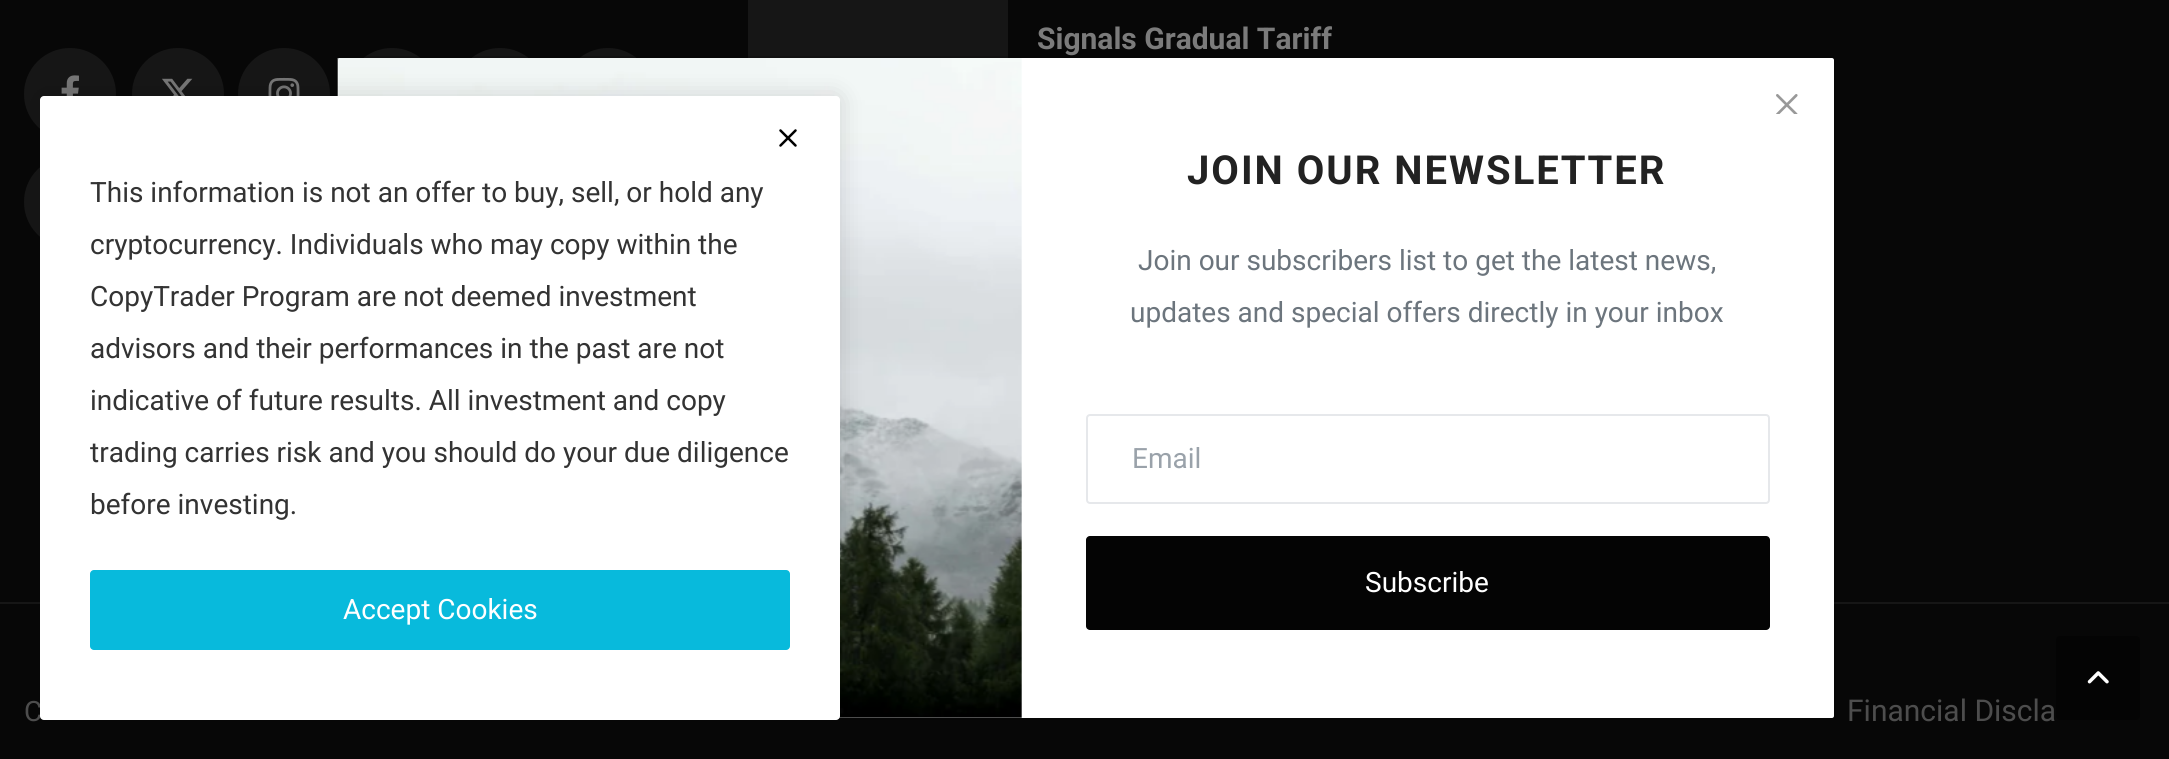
import math
import cairo

surface = cairo.ImageSurface(cairo.FORMAT_RGB24, 2169, 759)
cr = cairo.Context(surface)
options = cairo.FontOptions()
options.set_hint_metrics(cairo.HINT_METRICS_OFF)
options.set_hint_style(cairo.HINT_STYLE_NONE)
cr.set_font_options(options)
cr.set_miter_limit(4)


def rgb(code):
    cr.set_source_rgb(*(v / 255 for v in bytes.fromhex(code[-6:])))


def tracked(x, y, s, letter, word):
    cr.move_to(x, y)
    for ch in s:
        cr.show_text(ch)
        cr.rel_move_to(letter + word * (ch == ' '), 0)


def rrect(x, y, w, h, r):
    cr.new_sub_path()
    for i, (u, v) in enumerate([(x + w - r, y + h - r), (x + r, y + h - r), (x + r, y + r), (x + w - r, y + r)]):
        cr.arc(u, v, r, i * math.pi / 2, (i + 1) * math.pi / 2)
    cr.close_path()


def soft_shadow(x, y, w, h, r, blur, alpha):
    cr.push_group_with_content(cairo.CONTENT_ALPHA)
    cr.set_operator(cairo.OPERATOR_SOURCE)
    for i in range(15, -16, -2):
        e = blur * i / 6
        if min(w, h) + 2 * e > 0:
            cr.set_source_rgba(0, 0, 0, alpha * math.erfc((i - 1) / 8.5) / 2)
            rrect(x - e, y - e, w + 2 * e, h + 2 * e, max(0, min(r + e + blur * .6, min(w, h) / 2 + e)))
            cr.fill()
    cr.mask(cr.pop_group())


def image(path, x, y, w, h):
    cr.save()
    cr.set_source_surface(cairo.ImageSurface.create_from_png(path), x, y)
    cr.rectangle(x, y, w, h)
    cr.fill()
    cr.restore()


rgb("#070707")
cr.paint()
rgb("#161616")
cr.rectangle(748, 0, 260, 58)
cr.fill()
cr.arc(70, 94, 46, 0, 2 * math.pi)
cr.fill()
image("img/1.png", 61, 75, 18, 21)
cr.arc(178, 94, 46, 0, 2 * math.pi)
cr.fill()
image("img/2.png", 162, 78, 31, 18)
cr.arc(284, 94, 46, 0, 2 * math.pi)
cr.fill()
image("img/3.png", 268, 77, 32, 19)
cr.arc(392, 94, 46, 0, 2 * math.pi)
cr.fill()
cr.arc(500, 94, 46, 0, 2 * math.pi)
cr.fill()
cr.arc(608, 94, 46, 0, 2 * math.pi)
cr.fill()
cr.arc(70, 202, 46, 0, 2 * math.pi)
cr.fill()
cr.rectangle(0, 602, 2169, 2)
cr.fill()
rgb("#ffffff")
rrect(338, 58, 1496, 660, 2)
cr.fill()
rrect(337, 57, 1498, 662, 3)
cr.set_source_rgba(0, 0, 0, 0.18)
cr.stroke()
image("img/5.png", 337, 58, 685, 660)
rgb("#000000")
soft_shadow(40, 96, 800, 624, 4, 12, 0.14)
image("img/6.png", 1776, 94, 22, 20)
rrect(1087, 415, 682, 88, 3)
rgb("#e6e8eb")
cr.stroke()
rgb("#040404")
rrect(1086, 536, 684, 94, 4)
cr.fill()
rrect(2056, 636, 84, 84, 4)
cr.fill()
image("img/7.png", 2087, 671, 22, 13)
cr.select_font_face("Roboto", cairo.FONT_SLANT_NORMAL, cairo.FONT_WEIGHT_BOLD)
cr.set_font_size(30)
rgb("#7b7b7b")
cr.move_to(1037, 49)
cr.show_text("Signals Gradual Tariff")
cr.select_font_face("Roboto")
cr.set_font_size(28)
rgb("#4d4d4d")
cr.move_to(24, 721)
cr.show_text("C")
cr.set_font_size(30)
cr.move_to(1847, 721)
cr.show_text("Financial Discla")
rgb("#ffffff")
rrect(40, 96, 800, 624, 4)
cr.fill()
image("img/4.png", 779, 129, 18, 18)
cr.set_font_size(28)
rgb("#333333")
for x, y, s in [
    (90, 202, "This information is not an offer to buy, sell, or hold any"),
    (90, 254, "cryptocurrency. Individuals who may copy within the"),
    (90, 306, "CopyTrader Program are not deemed investment"),
    (90, 358, "advisors and their performances in the past are not"),
    (90, 410, "indicative of future results. All investment and copy"),
    (90, 462, "trading carries risk and you should do your due diligence"),
    (90, 514, "before investing."),
]:
    cr.move_to(x, y)
    cr.show_text(s)
rgb("#08badc")
rrect(90, 570, 700, 80, 4)
cr.fill()
rgb("#ffffff")
cr.move_to(343, 619)
cr.show_text("Accept Cookies")
cr.select_font_face("Roboto", cairo.FONT_SLANT_NORMAL, cairo.FONT_WEIGHT_BOLD)
cr.set_font_size(40)
rgb("#222222")
tracked(1187, 184, "JOIN OUR NEWSLETTER", 2, 0)
cr.select_font_face("Roboto")
cr.set_font_size(28)
rgb("#6c757d")
cr.move_to(1138, 270)
cr.show_text("Join our subscribers list to get the latest news,")
cr.move_to(1130, 322)
cr.show_text("updates and special offers directly in your inbox")
rgb("#9aa2aa")
cr.move_to(1132, 468)
cr.show_text("Email")
rgb("#ffffff")
cr.move_to(1365, 592)
cr.show_text("Subscribe")
surface.write_to_png("page.png")
